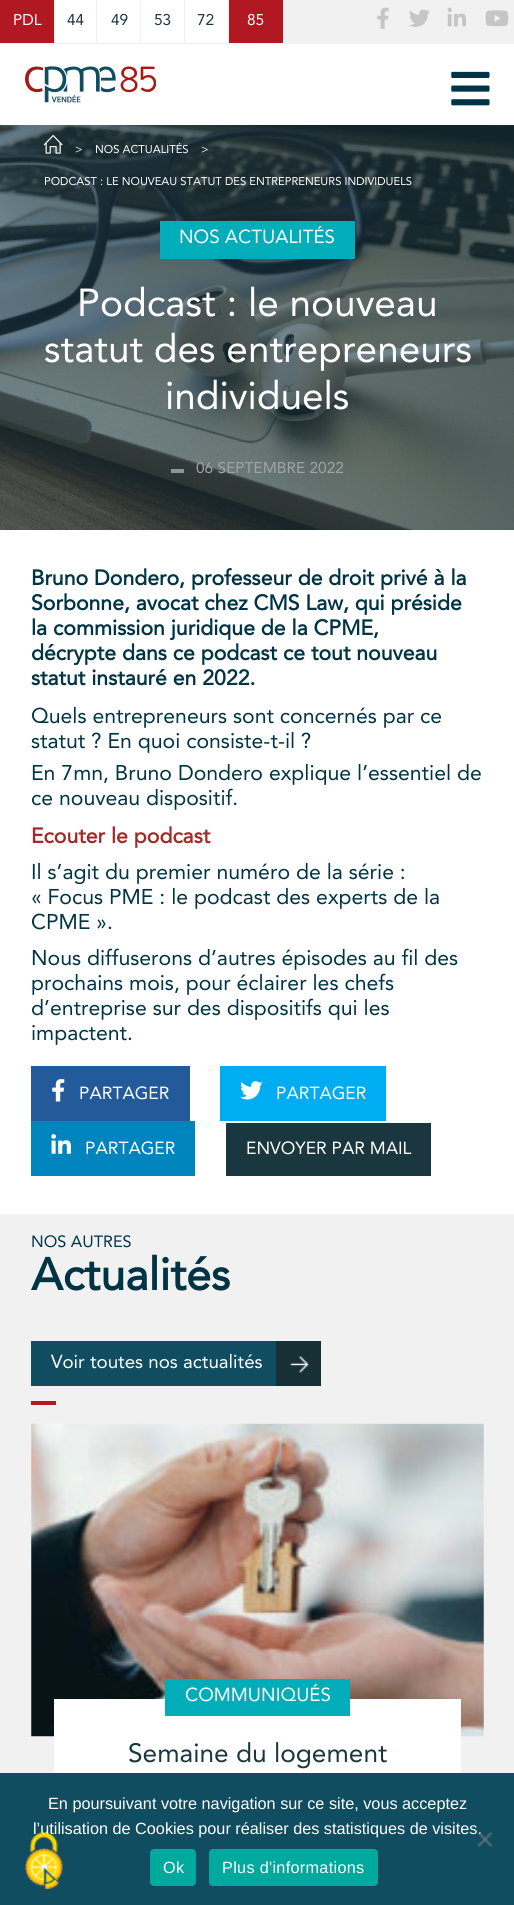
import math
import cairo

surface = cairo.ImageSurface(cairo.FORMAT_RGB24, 514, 1905)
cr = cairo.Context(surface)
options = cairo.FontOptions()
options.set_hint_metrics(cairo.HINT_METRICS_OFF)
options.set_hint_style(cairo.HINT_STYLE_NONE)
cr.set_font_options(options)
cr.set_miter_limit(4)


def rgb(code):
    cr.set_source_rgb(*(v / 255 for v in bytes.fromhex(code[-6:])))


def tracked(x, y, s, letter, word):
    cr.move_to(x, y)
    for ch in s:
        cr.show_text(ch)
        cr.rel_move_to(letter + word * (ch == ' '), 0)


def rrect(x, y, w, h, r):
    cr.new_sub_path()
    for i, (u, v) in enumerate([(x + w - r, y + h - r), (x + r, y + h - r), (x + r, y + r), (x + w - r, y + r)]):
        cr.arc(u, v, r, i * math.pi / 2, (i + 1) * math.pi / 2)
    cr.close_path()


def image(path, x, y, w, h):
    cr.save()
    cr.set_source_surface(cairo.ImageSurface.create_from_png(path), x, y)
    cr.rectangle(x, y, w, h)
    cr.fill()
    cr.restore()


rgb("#ffffff")
cr.paint()
for x, y, w, h, color in [
    (283, 0, 231, 44, "#f1f1f1"),
    (0, 0, 54, 43, "#b21822"),
    (54, 0, 1, 44, "#f1f1f1"),
    (0, 43, 55, 1, "#f1f1f1"),
    (96, 0, 1, 44, "#f1f1f1"),
    (55, 43, 43, 1, "#f1f1f1"),
    (140, 0, 1, 44, "#f1f1f1"),
    (98, 43, 43, 1, "#f1f1f1"),
    (184, 0, 1, 44, "#f1f1f1"),
    (141, 43, 44, 1, "#f1f1f1"),
    (228, 0, 1, 44, "#f1f1f1"),
    (185, 43, 99, 1, "#f1f1f1"),
    (229, 0, 54, 43, "#b21822"),
]:
    rgb(color)
    cr.rectangle(x, y, w, h)
    cr.fill()
image("img/1.png", 377, 7, 12, 22)
image("img/2.png", 409, 9, 21, 18)
image("img/3.png", 447, 7, 20, 20)
image("img/4.png", 485, 10, 24, 17)
image("img/5.png", 25, 66, 131, 37)
image("img/6.png", 451, 71, 39, 35)
image("img/7.png", 0, 125, 514, 405)
image("img/8.png", 43, 134, 20, 20)
rgb("#00adb9")
cr.rectangle(160, 221, 195, 38)
cr.fill()
cr.set_source_rgba(0.737, 0.737, 0.737, 0.7)
cr.rectangle(171, 469, 13, 4)
cr.fill()
rgb("#235a9a")
cr.rectangle(31, 1066, 159, 55)
cr.fill()
image("img/9.png", 52, 1079, 13, 23)
rgb("#00adf2")
cr.rectangle(220, 1066, 166, 55)
cr.fill()
image("img/10.png", 240, 1081, 23, 19)
rgb("#0084bd")
cr.rectangle(31, 1121, 164, 55)
cr.fill()
image("img/11.png", 51, 1134, 20, 20)
for x, y, w, h, color in [
    (226, 1123, 205, 53, "#1a373f"),
    (0, 1214, 514, 559, "#f1f1f1"),
    (31, 1341, 245, 45, "#114d61"),
    (276, 1341, 45, 45, "#163036"),
]:
    rgb(color)
    cr.rectangle(x, y, w, h)
    cr.fill()
image("img/12.png", 290, 1356, 19, 17)
rgb("#b21822")
cr.rectangle(31, 1401, 25, 4)
cr.fill()
image("img/13.png", 31, 1423, 453, 314)
for x, y, w, h, color in [
    (54, 1699, 407, 74, "#ffffff"),
    (165, 1679, 185, 37, "#00adb9"),
    (0, 1773, 514, 132, "#114d61"),
]:
    rgb(color)
    cr.rectangle(x, y, w, h)
    cr.fill()
rgb("#00a99d")
rrect(150, 1849, 46, 37, 4)
cr.fill()
rrect(209, 1849, 169, 37, 4)
cr.fill()
cr.select_font_face("Avenir")
cr.set_font_size(15.5)
rgb("#ffffff")
cr.move_to(13, 25)
cr.show_text("PDL")
rgb("#1a373f")
for x, y, s in [
    (67, 25, "44"),
    (111, 25, "49"),
    (154, 25, "53"),
    (197, 25, "72"),
]:
    cr.move_to(x, y)
    cr.show_text(s)
rgb("#ffffff")
cr.move_to(247, 25)
cr.show_text("85")
cr.set_font_size(11.25)
for x, y, s in [
    (75, 153, ">"),
    (95, 153, "NOS ACTUALITÉS"),
    (201, 153, ">"),
    (44, 185, "PODCAST : LE NOUVEAU STATUT DES ENTREPRENEURS INDIVIDUELS"),
]:
    cr.move_to(x, y)
    cr.show_text(s)
cr.set_font_size(18.75)
cr.move_to(179, 243)
cr.show_text("NOS ACTUALITÉS")
cr.set_font_size(38.75)
for x, y, s in [
    (77, 316, "Podcast : le nouveau"),
    (44, 362, "statut des entrepreneurs"),
    (165, 409, "individuels"),
]:
    cr.move_to(x, y)
    cr.show_text(s)
cr.set_font_size(15.5)
rgb("#a0a4a3")
cr.move_to(196, 473)
cr.show_text("06 SEPTEMBRE 2022")
cr.select_font_face("Avenir", cairo.FONT_SLANT_NORMAL, cairo.FONT_WEIGHT_BOLD)
cr.set_font_size(21.25)
rgb("#003444")
for x, y, s in [
    (31, 585, "Bruno Dondero, professeur de droit privé à la"),
    (31, 610, "Sorbonne, avocat chez CMS Law, qui préside"),
    (31, 635, "la commission juridique de la CPME,"),
    (31, 660, "décrypte dans ce podcast ce tout nouveau"),
    (31, 685, "statut instauré en 2022."),
]:
    cr.move_to(x, y)
    cr.show_text(s)
cr.select_font_face("Avenir")
for x, y, s in [
    (31, 723, "Quels entrepreneurs sont concernés par ce"),
    (31, 748, "statut ? En quoi consiste-t-il ?"),
    (31, 780, "En 7mn, Bruno Dondero explique l’essentiel de"),
    (31, 805, "ce nouveau dispositif."),
]:
    cr.move_to(x, y)
    cr.show_text(s)
cr.select_font_face("Avenir", cairo.FONT_SLANT_NORMAL, cairo.FONT_WEIGHT_BOLD)
rgb("#a32a29")
cr.move_to(31, 843)
cr.show_text("Ecouter le podcast")
cr.select_font_face("Avenir")
rgb("#003444")
for x, y, s in [
    (31, 879, "Il s’agit du premier numéro de la série :"),
    (31, 904, "« Focus PME : le podcast des experts de la"),
    (31, 929, "CPME »."),
    (31, 965, "Nous diffuserons d’autres épisodes au fil des"),
    (31, 990, "prochains mois, pour éclairer les chefs"),
    (31, 1015, "d’entreprise sur des dispositifs qui les"),
    (31, 1040, "impactent."),
]:
    cr.move_to(x, y)
    cr.show_text(s)
cr.set_font_size(17.5)
rgb("#ffffff")
for x, y, s in [
    (79, 1099, "PARTAGER"),
    (276, 1099, "PARTAGER"),
    (85, 1154, "PARTAGER"),
    (246, 1154, "ENVOYER PAR MAIL"),
]:
    cr.move_to(x, y)
    cr.show_text(s)
cr.set_font_size(16.25)
rgb("#003444")
cr.move_to(31, 1247)
cr.show_text("NOS AUTRES")
cr.select_font_face("Avenir", cairo.FONT_SLANT_NORMAL, cairo.FONT_WEIGHT_BOLD)
cr.set_font_size(45)
cr.move_to(31, 1290)
cr.show_text("Actualités")
cr.select_font_face("Avenir")
cr.set_font_size(18.75)
rgb("#ffffff")
cr.move_to(51, 1368)
cr.show_text("Voir toutes nos actualités")
cr.move_to(185, 1701)
cr.show_text("COMMUNIQUÉS")
cr.set_font_size(26.25)
rgb("#1a373f")
cr.move_to(128, 1762)
cr.show_text("Semaine du logement")
cr.select_font_face("Liberation Sans")
cr.set_font_size(16.25)
rgb("#ffffff")
cr.move_to(48, 1809)
cr.show_text("En poursuivant votre navigation sur ce site, vous acceptez")
cr.move_to(33, 1834)
cr.show_text("l’utilisation de Cookies pour réaliser des statistiques de visites.")
rgb("#496771")
cr.new_path()
cr.move_to(490.5, 1832)
cr.line_to(492.5, 1833.5)
cr.line_to(479.5, 1847)
cr.line_to(477.5, 1845)
cr.close_path()
cr.fill()
cr.set_source_rgba(0.502, 0.502, 0.502, 0.5)
cr.new_path()
cr.move_to(477.5, 1833.5)
cr.line_to(479.5, 1832)
cr.line_to(492.5, 1845)
cr.line_to(490.5, 1847)
cr.close_path()
cr.fill()
rgb("#ffffff")
tracked(163, 1873, "Ok", 0.3, 0)
tracked(222, 1873, "Plus d'informations", 0.3, 0)
image("img/14.png", 24, 1832, 39, 58)
surface.write_to_png("page.png")
